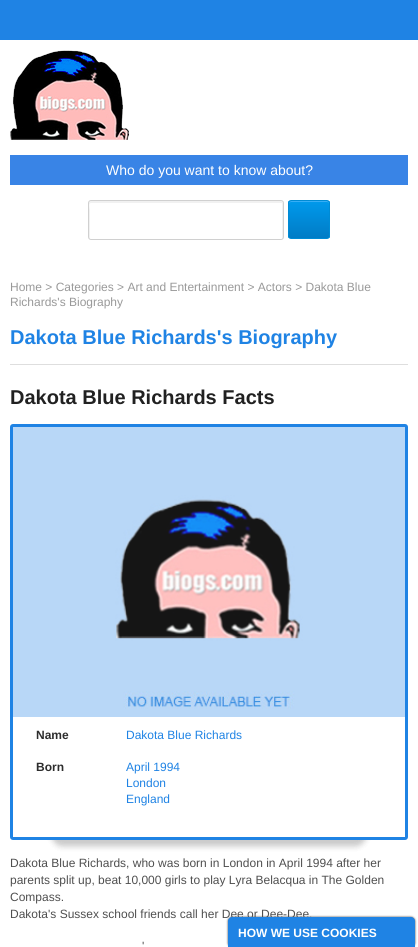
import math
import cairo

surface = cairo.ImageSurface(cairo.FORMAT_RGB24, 418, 947)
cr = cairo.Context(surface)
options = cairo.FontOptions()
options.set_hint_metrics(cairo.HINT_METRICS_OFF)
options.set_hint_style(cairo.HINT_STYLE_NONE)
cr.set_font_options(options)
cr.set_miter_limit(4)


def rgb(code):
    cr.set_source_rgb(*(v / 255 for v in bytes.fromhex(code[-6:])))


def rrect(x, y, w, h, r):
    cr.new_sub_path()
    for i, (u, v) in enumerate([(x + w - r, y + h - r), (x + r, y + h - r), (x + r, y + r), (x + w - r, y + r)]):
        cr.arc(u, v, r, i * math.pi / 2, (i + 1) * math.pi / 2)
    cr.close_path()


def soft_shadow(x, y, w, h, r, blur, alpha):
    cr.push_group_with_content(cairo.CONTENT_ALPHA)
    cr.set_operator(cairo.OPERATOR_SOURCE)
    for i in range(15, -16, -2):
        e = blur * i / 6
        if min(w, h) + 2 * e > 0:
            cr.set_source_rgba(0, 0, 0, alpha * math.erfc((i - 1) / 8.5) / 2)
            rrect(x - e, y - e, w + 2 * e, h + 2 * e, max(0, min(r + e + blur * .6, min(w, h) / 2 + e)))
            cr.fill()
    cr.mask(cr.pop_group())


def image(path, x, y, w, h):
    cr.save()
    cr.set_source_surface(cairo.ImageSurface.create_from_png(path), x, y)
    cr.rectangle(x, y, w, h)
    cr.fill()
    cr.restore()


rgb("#ffffff")
cr.paint()
rgb("#1f83e4")
cr.rectangle(0, 0, 418, 40)
cr.fill()
image("img/1.png", 10, 50, 119, 90)
rgb("#3984e6")
cr.rectangle(10, 155, 398, 30)
cr.fill()
rgb("#f1f1f1")
cr.new_path()
cr.move_to(91, 203)
cr.line_to(281, 203)
cr.curve_to(282, 203, 282, 203, 282, 204)
cr.line_to(282, 239)
cr.curve_to(283, 238, 283, 238, 283, 237)
cr.line_to(283, 203)
cr.curve_to(283, 202, 282, 201, 281, 201)
cr.line_to(91, 201)
cr.curve_to(90, 201, 89, 202, 89, 203)
cr.line_to(89, 237)
cr.curve_to(89, 238, 89, 238, 90, 239)
cr.line_to(90, 210)
cr.curve_to(90, 209, 88, 203, 91, 203)
cr.close_path()
cr.fill()
rrect(88.5, 200.5, 195, 39, 2.5)
rgb("#d0d0d0")
cr.set_line_width(1)
cr.stroke()
cr.save()
rrect(288, 200, 42, 39, 3)
cr.clip()
gradient = cairo.LinearGradient(309, 201, 309, 238)
gradient.add_color_stop_rgba(0, 0, 0.6, 0.925, 1)
gradient.add_color_stop_rgba(1, 0.004, 0.486, 0.773, 1)
cr.set_source(gradient)
cr.rectangle(288, 201, 42, 37)
cr.fill()
cr.restore()
rgb("#37aef6")
cr.new_path()
cr.move_to(291, 202)
cr.line_to(327, 202)
cr.curve_to(328, 202, 329, 203, 329, 204)
cr.curve_to(329, 200, 325, 201, 321, 201)
cr.line_to(297, 201)
cr.curve_to(293, 201, 289, 200, 289, 204)
cr.curve_to(289, 203, 290, 202, 291, 202)
cr.close_path()
cr.fill()
rrect(288.5, 200.5, 41, 38, 2.5)
rgb("#008bd5")
cr.stroke()
rgb("#dedede")
cr.rectangle(10, 364, 398, 1)
cr.fill()
rgb("#969696")
soft_shadow(52, 702, 314, 144, 10, 3, 0.3)
soft_shadow(52, 702, 314, 144, 10, 3, 0.3)
rgb("#ffffff")
rrect(11.5, 425.5, 395, 413, 1.5)
cr.fill_preserve()
rgb("#1f83e4")
cr.set_line_width(3)
cr.stroke()
image("img/2.png", 13, 427, 392, 290)
rgb("#444444")
soft_shadow(228, 917, 187, 30, 4, 1, 1)
cr.select_font_face("Liberation Sans")
cr.set_font_size(14)
rgb("#ffffff")
cr.move_to(106, 175)
cr.show_text("Who do you want to know about?")
cr.set_font_size(12)
rgb("#999999")
cr.move_to(10, 291)
cr.show_text("Home > Categories > Art and Entertainment > Actors > Dakota Blue")
cr.move_to(10, 306)
cr.show_text("Richards's Biography")
cr.select_font_face("Liberation Sans", cairo.FONT_SLANT_NORMAL, cairo.FONT_WEIGHT_BOLD)
cr.set_font_size(20)
rgb("#1f83e4")
cr.move_to(10, 344)
cr.show_text("Dakota Blue Richards's Biography")
rgb("#212121")
cr.move_to(10, 404)
cr.show_text("Dakota Blue Richards Facts")
cr.set_font_size(12)
rgb("#2d2d2d")
cr.move_to(36, 739)
cr.show_text("Name")
cr.select_font_face("Liberation Sans")
rgb("#1f83e4")
cr.move_to(126, 739)
cr.show_text("Dakota Blue Richards")
cr.select_font_face("Liberation Sans", cairo.FONT_SLANT_NORMAL, cairo.FONT_WEIGHT_BOLD)
rgb("#2d2d2d")
cr.move_to(36, 771)
cr.show_text("Born")
cr.select_font_face("Liberation Sans")
rgb("#1f83e4")
for x, y, s in [
    (126, 771, "April 1994"),
    (126, 787, "London"),
    (126, 803, "England"),
]:
    cr.move_to(x, y)
    cr.show_text(s)
rgb("#4f4f4f")
for x, y, s in [
    (10, 867, "Dakota Blue Richards, who was born in London in April 1994 after her"),
    (10, 884, "parents split up, beat 10,000 girls to play Lyra Belacqua in The Golden"),
    (10, 901, "Compass."),
    (10, 918, "Dakota's Sussex school friends call her Dee or Dee-Dee."),
    (142, 950, "'"),
]:
    cr.move_to(x, y)
    cr.show_text(s)
rgb("#1f83e4")
cr.new_path()
cr.move_to(232, 917)
cr.line_to(411, 917)
cr.curve_to(413, 917, 415, 919, 415, 921)
cr.line_to(415, 947)
cr.line_to(228, 947)
cr.line_to(228, 921)
cr.curve_to(228, 919, 230, 917, 232, 917)
cr.close_path()
cr.fill()
cr.select_font_face("Liberation Sans", cairo.FONT_SLANT_NORMAL, cairo.FONT_WEIGHT_BOLD)
rgb("#ffffff")
cr.move_to(238, 937)
cr.show_text("HOW WE USE COOKIES")
surface.write_to_png("page.png")
